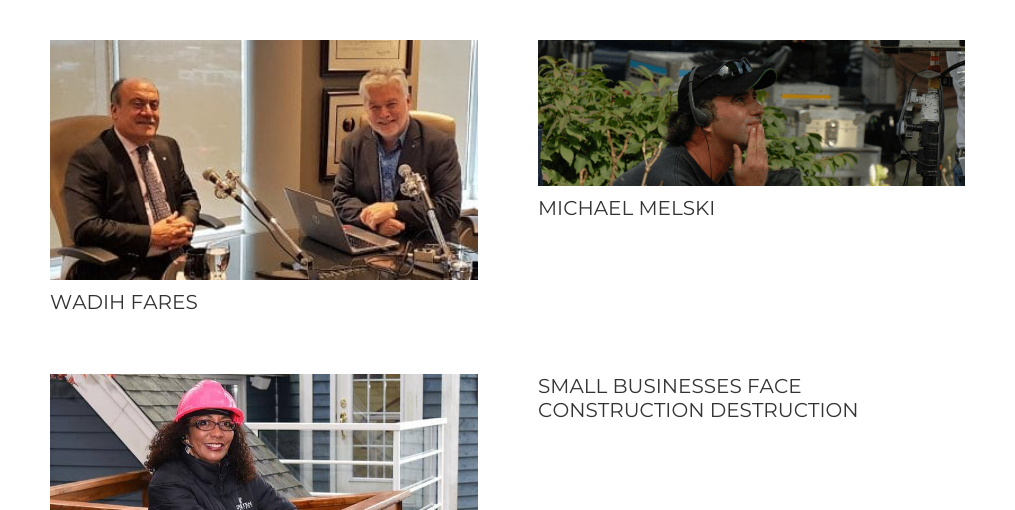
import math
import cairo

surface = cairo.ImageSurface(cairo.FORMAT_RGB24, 1015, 510)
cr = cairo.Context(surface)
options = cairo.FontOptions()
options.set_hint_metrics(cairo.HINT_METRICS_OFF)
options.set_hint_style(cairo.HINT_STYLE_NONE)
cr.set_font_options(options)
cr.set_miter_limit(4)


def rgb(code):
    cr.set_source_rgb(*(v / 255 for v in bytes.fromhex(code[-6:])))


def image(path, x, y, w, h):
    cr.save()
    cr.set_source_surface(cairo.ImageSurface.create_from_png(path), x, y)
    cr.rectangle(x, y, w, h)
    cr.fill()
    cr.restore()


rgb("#ffffff")
cr.paint()
image("img/1.png", 538, 40, 427, 146)
image("img/2.png", 50, 40, 428, 240)
image("img/3.png", 50, 374, 428, 136)
cr.select_font_face("Montserrat")
cr.set_font_size(20)
rgb("#333333")
for x, y, s in [
    (538, 215, "MICHAEL MELSKI"),
    (50, 309, "WADIH FARES"),
    (538, 393, "SMALL BUSINESSES FACE"),
    (538, 417, "CONSTRUCTION DESTRUCTION"),
]:
    cr.move_to(x, y)
    cr.show_text(s)
surface.write_to_png("page.png")
